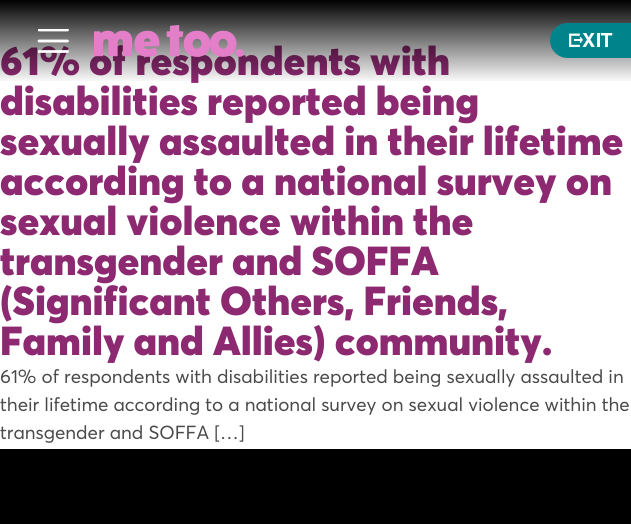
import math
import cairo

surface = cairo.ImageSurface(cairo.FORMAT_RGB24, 631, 525)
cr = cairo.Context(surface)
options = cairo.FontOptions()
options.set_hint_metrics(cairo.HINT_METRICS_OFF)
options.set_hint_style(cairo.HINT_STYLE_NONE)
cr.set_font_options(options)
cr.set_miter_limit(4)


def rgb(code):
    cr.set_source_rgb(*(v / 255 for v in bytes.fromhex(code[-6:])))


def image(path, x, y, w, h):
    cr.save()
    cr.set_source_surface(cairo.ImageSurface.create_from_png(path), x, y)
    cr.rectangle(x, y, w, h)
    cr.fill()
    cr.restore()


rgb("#ffffff")
cr.paint()
rgb("#000000")
cr.rectangle(0, 449, 631, 75)
cr.fill()
cr.select_font_face("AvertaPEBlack")
cr.set_font_size(40)
rgb("#8d2971")
cr.move_to(0, 75)
cr.show_text("61% of respondents with")
gradient = cairo.LinearGradient(316, 0, 316, 83)
gradient.add_color_stop_rgba(0, 0, 0, 0, 1)
gradient.add_color_stop_rgba(1, 0, 0, 0, 0)
cr.set_source(gradient)
cr.rectangle(0, 0, 631, 81)
cr.fill()
rgb("#00838a")
cr.new_path()
cr.move_to(567.5, 23)
cr.line_to(631, 23)
cr.line_to(631, 58)
cr.line_to(567.5, 58)
cr.curve_to(558, 58, 550, 50, 550, 40.5)
cr.curve_to(550, 31, 558, 23, 567.5, 23)
cr.close_path()
cr.fill()
image("img/2.png", 569, 33, 44, 15)
image("img/1.png", 94, 25, 150, 32)
cr.save()
cr.rectangle(38, 29, 31, 24)
cr.clip()
cr.new_path()
cr.move_to(39, 30)
cr.line_to(67.5, 30)
rgb("#ffffff")
cr.set_line_width(2.8)
cr.set_line_cap(cairo.LINE_CAP_ROUND)
cr.stroke()
cr.restore()
cr.new_path()
cr.move_to(39, 41)
cr.line_to(67.5, 41)
rgb("#ffffff")
cr.set_line_width(2.8)
cr.set_line_cap(cairo.LINE_CAP_ROUND)
cr.stroke()
cr.save()
cr.rectangle(38, 29, 31, 24)
cr.clip()
cr.new_path()
cr.move_to(39, 51.5)
cr.line_to(67.5, 51.5)
cr.stroke()
cr.restore()
rgb("#8d2971")
for x, y, s in [
    (0, 115, "disabilities reported being"),
    (0, 155, "sexually assaulted in their lifetime"),
    (0, 195, "according to a national survey on"),
    (0, 235, "sexual violence within the"),
    (0, 275, "transgender and SOFFA"),
    (0, 315, "(Significant Others, Friends,"),
    (0, 355, "Family and Allies) community."),
]:
    cr.move_to(x, y)
    cr.show_text(s)
cr.select_font_face("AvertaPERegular")
cr.set_font_size(18.75)
rgb("#4a4a4a")
for x, y, s in [
    (0, 383, "61% of respondents with disabilities reported being sexually assaulted in"),
    (0, 411, "their lifetime according to a national survey on sexual violence within the"),
    (0, 439, "transgender and SOFFA […]"),
]:
    cr.move_to(x, y)
    cr.show_text(s)
surface.write_to_png("page.png")
